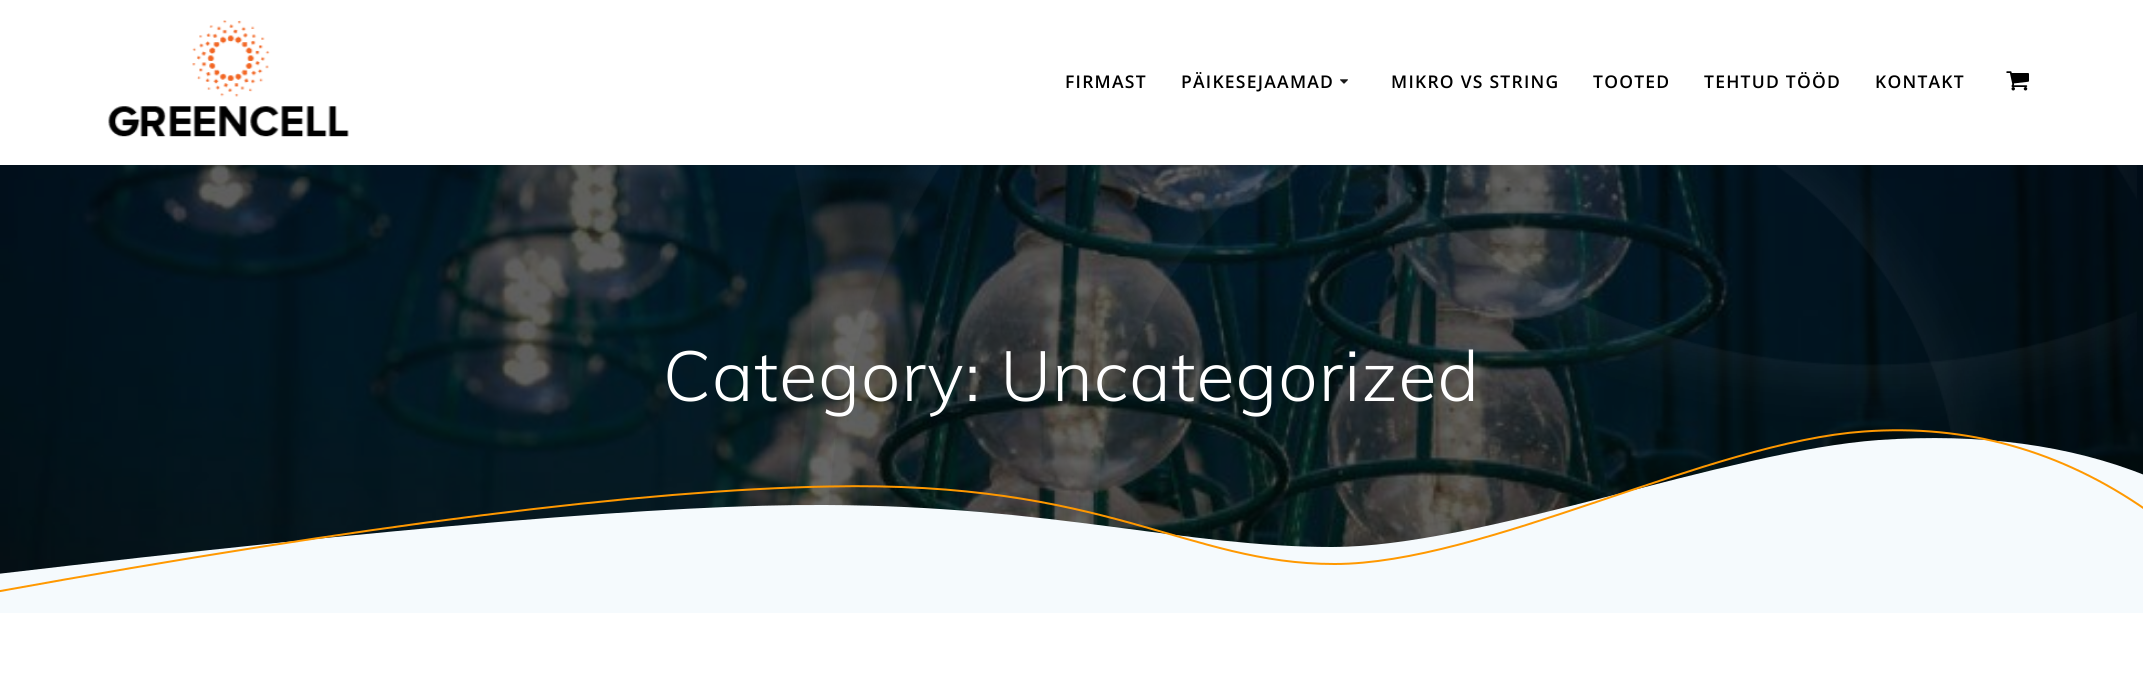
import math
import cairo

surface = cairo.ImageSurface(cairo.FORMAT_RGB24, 2143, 687)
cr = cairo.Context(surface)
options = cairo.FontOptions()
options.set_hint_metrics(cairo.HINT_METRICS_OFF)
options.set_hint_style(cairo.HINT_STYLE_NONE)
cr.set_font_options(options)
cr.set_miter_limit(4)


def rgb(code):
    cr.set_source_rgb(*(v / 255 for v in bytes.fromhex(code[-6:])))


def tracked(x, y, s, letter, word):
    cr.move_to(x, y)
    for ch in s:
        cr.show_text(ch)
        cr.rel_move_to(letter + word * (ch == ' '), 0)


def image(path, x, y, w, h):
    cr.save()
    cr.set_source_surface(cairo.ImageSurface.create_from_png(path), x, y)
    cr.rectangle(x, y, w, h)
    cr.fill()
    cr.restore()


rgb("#ffffff")
cr.paint()
image("img/1.png", 108, 20, 241, 117)
image("img/2.png", 1340, 79, 8, 5)
image("img/3.png", 2006, 71, 23, 20)
image("img/4.png", 0, 165, 2143, 409)
image("img/5.png", 791, 165, 1346, 360)
rgb("#f5fafd")
cr.new_path()
cr.move_to(-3, 574)
cr.curve_to(397, 527, 673, 504, 825, 505)
cr.curve_to(1053, 506, 1185, 547, 1332, 547)
cr.curve_to(1480, 547, 1726, 451, 1879, 440)
cr.curve_to(1981, 433, 2070, 445, 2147, 476)
cr.line_to(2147, 615)
cr.line_to(-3, 617)
cr.close_path()
cr.fill()
cr.new_path()
cr.move_to(-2.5, 591.5)
cr.curve_to(365.5, 525, 642.5, 490, 828.5, 486.5)
cr.curve_to(1107.5, 480.5, 1186.5, 564, 1334.5, 564)
cr.curve_to(1482.5, 564, 1710.5, 442, 1864, 431.5)
cr.curve_to(1966.5, 424, 2061, 450.5, 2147, 510.5)
rgb("#ff9800")
cr.stroke()
rgb("#ffffff")
cr.rectangle(0, 613, 2143, 4)
cr.fill()
cr.select_font_face("Open Sans SemiBold")
cr.set_font_size(17.5)
rgb("#000000")
for x, y, s in [
    (1065, 88, "FIRMAST"),
    (1181, 88, "PÄIKESEJAAMAD"),
    (1391, 88, "MIKRO VS STRING"),
    (1593, 88, "TOOTED"),
    (1704, 88, "TEHTUD TÖÖD"),
    (1875, 88, "KONTAKT"),
]:
    tracked(x, y, s, 1.25, 0)
cr.select_font_face("Muli Light")
cr.set_font_size(70)
rgb("#ffffff")
tracked(663, 401, "Category: Uncategorized", 1.1, 0)
surface.write_to_png("page.png")
